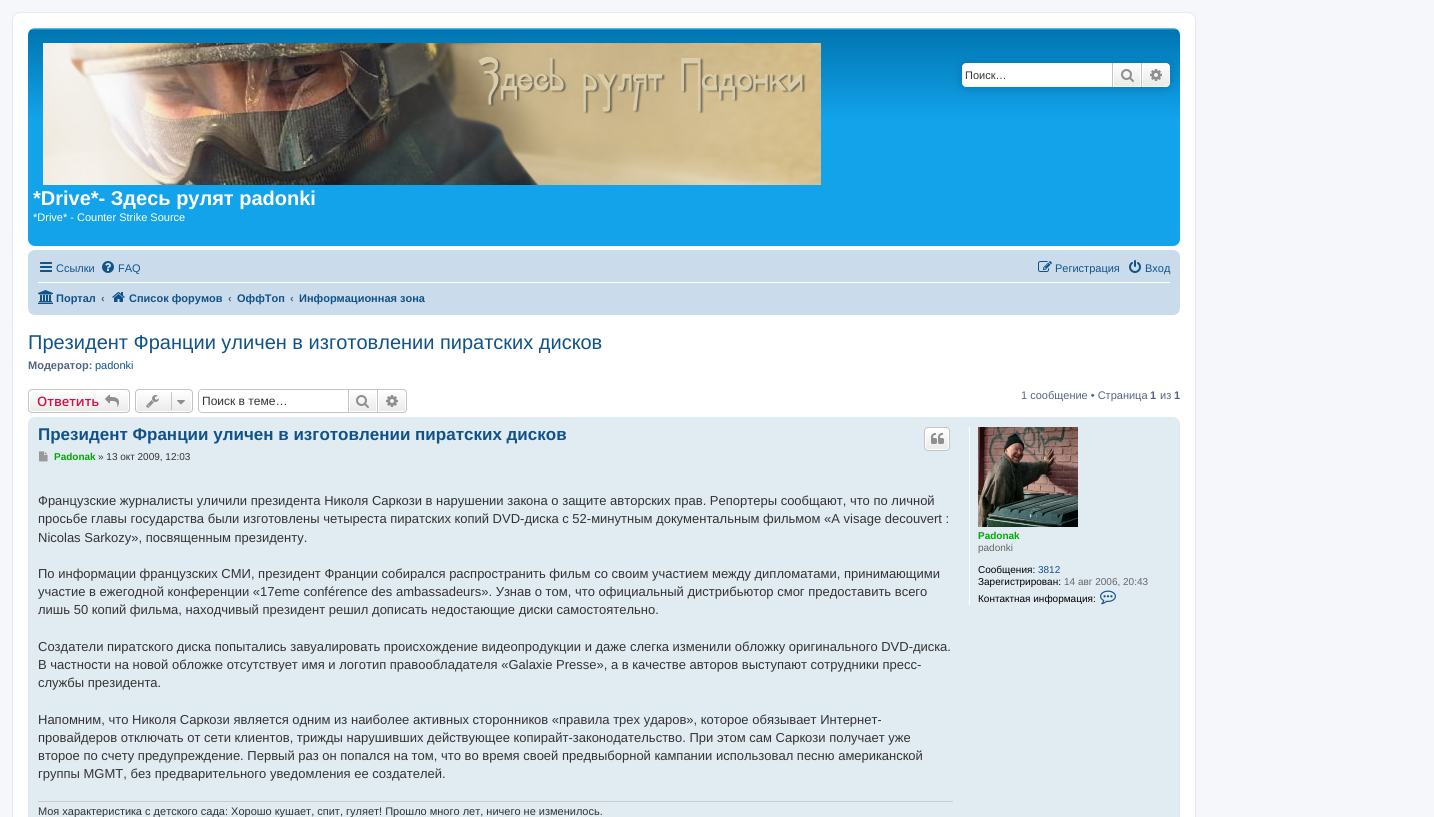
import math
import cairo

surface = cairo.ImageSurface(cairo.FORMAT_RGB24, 1434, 817)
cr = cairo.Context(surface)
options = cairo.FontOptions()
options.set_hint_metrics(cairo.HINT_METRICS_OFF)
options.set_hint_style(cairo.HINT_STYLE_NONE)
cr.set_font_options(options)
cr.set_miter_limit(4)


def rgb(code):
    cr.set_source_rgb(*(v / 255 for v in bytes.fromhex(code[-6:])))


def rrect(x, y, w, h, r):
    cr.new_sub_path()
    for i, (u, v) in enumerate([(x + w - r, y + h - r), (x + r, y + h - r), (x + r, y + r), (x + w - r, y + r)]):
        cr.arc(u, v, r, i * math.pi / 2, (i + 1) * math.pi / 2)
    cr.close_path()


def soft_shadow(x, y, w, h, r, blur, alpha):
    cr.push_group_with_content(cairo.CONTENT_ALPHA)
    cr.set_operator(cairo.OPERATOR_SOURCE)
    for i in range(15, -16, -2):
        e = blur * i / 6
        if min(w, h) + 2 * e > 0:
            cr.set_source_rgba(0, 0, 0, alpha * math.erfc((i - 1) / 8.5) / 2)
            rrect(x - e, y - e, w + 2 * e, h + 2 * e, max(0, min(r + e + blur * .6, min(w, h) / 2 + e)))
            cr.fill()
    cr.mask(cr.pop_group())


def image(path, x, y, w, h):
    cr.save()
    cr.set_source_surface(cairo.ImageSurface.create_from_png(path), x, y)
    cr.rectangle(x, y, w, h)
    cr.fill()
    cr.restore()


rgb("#f5f7fa")
cr.paint()
rgb("#ffffff")
rrect(12.5, 12.5, 1183, 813, 7.5)
cr.fill_preserve()
rgb("#e6e9ed")
cr.set_line_width(1)
cr.stroke()
gradient = cairo.LinearGradient(604, 28, 604, 246)
gradient.add_color_stop_rgba(0, 0.416, 0.808, 1, 1)
gradient.add_color_stop_rgba(0.01, 0, 0.463, 0.694, 1)
gradient.add_color_stop_rgba(0.42, 0.071, 0.639, 0.922, 1)
gradient.add_color_stop_rgba(1, 0.071, 0.639, 0.922, 1)
cr.set_source(gradient)
rrect(28, 28, 1152, 218, 7)
cr.fill()
rgb("#0075b0")
soft_shadow(962, 63, 208, 24, 4, 5, 1)
rgb("#ffffff")
cr.new_path()
cr.move_to(966, 63)
cr.line_to(1112, 63)
cr.line_to(1112, 87)
cr.line_to(966, 87)
cr.curve_to(964, 87, 962, 85, 962, 83)
cr.line_to(962, 67)
cr.curve_to(962, 65, 964, 63, 966, 63)
cr.close_path()
cr.fill()
gradient = cairo.LinearGradient(1127, 63, 1127, 87)
gradient.add_color_stop_rgba(0, 1, 1, 1, 1)
gradient.add_color_stop_rgba(1, 0.914, 0.914, 0.914, 1)
cr.set_source(gradient)
cr.rectangle(1114, 64, 26, 22)
cr.fill()
cr.rectangle(1113.5, 63.5, 27, 23)
rgb("#ffffff")
cr.stroke()
rgb("#c7c3bf")
cr.rectangle(1141, 63, 1, 24)
cr.fill()
cr.rectangle(1112, 63, 1, 24)
cr.fill()
image("img/1.png", 1121, 69, 13, 13)
gradient = cairo.LinearGradient(1156, 63, 1156, 87)
gradient.add_color_stop_rgba(0, 1, 1, 1, 1)
gradient.add_color_stop_rgba(1, 0.914, 0.914, 0.914, 1)
cr.set_source(gradient)
cr.new_path()
cr.move_to(1142.5, 63.5)
cr.line_to(1166, 63.5)
cr.curve_to(1168, 63.5, 1169.5, 65, 1169.5, 67)
cr.line_to(1169.5, 83)
cr.curve_to(1169.5, 85, 1168, 86.5, 1166, 86.5)
cr.line_to(1142.5, 86.5)
cr.close_path()
cr.fill_preserve()
rgb("#ffffff")
cr.stroke()
image("img/2.png", 1150, 69, 12, 12)
image("img/3.png", 43, 43, 778, 142)
rgb("#cadceb")
rrect(28, 250, 1152, 65, 7)
cr.fill()
image("img/4.png", 40, 262, 12, 10)
image("img/5.png", 102, 261, 12, 12)
image("img/6.png", 1038, 261, 14, 11)
image("img/7.png", 1129, 260, 12, 13)
rgb("#ffffff")
cr.rectangle(38, 282, 1132, 1)
cr.fill()
image("img/8.png", 38, 290, 15, 14)
image("img/9.png", 112, 292, 13, 10)
cr.save()
rrect(28, 389, 102, 24, 4)
cr.clip()
gradient = cairo.LinearGradient(79, 390, 79, 412)
gradient.add_color_stop_rgba(0, 1, 1, 1, 1)
gradient.add_color_stop_rgba(1, 0.914, 0.914, 0.914, 1)
cr.set_source(gradient)
cr.rectangle(28, 390, 102, 22)
cr.fill()
cr.restore()
rrect(29.5, 390.5, 99, 21, 2.5)
cr.stroke()
rrect(28.5, 389.5, 101, 23, 3.5)
rgb("#c7c3bf")
cr.stroke()
image("img/10.png", 105, 394, 14, 13)
cr.save()
rrect(135, 389, 58, 24, 4)
cr.clip()
gradient = cairo.LinearGradient(164, 390, 164, 412)
gradient.add_color_stop_rgba(0, 1, 1, 1, 1)
gradient.add_color_stop_rgba(1, 0.914, 0.914, 0.914, 1)
cr.set_source(gradient)
cr.rectangle(135, 390, 58, 22)
cr.fill()
cr.restore()
rrect(136.5, 390.5, 55, 21, 2.5)
rgb("#ffffff")
cr.stroke()
rrect(135.5, 389.5, 57, 23, 3.5)
rgb("#c7c3bf")
cr.stroke()
image("img/11.png", 146, 395, 13, 13)
cr.rectangle(171, 392, 1, 18)
cr.fill()
image("img/12.png", 177, 400, 8, 5)
cr.set_fill_rule(cairo.FILL_RULE_EVEN_ODD)
cr.new_path()
cr.move_to(202, 389)
cr.line_to(348, 389)
cr.line_to(348, 413)
cr.line_to(202, 413)
cr.curve_to(200, 413, 198, 411, 198, 409)
cr.line_to(198, 393)
cr.curve_to(198, 391, 200, 389, 202, 389)
cr.close_path()
cr.move_to(202, 390)
cr.line_to(348, 390)
cr.line_to(348, 412)
cr.line_to(202, 412)
cr.curve_to(200, 412, 199, 411, 199, 409)
cr.line_to(199, 393)
cr.curve_to(199, 391, 200, 390, 202, 390)
cr.close_path()
cr.fill()
gradient = cairo.LinearGradient(363, 390, 363, 412)
gradient.add_color_stop_rgba(0, 1, 1, 1, 1)
gradient.add_color_stop_rgba(1, 0.914, 0.914, 0.914, 1)
cr.set_source(gradient)
cr.rectangle(350, 393, 26, 18)
cr.fill()
cr.rectangle(348.5, 389.5, 29, 23)
rgb("#c7c3bf")
cr.stroke()
image("img/13.png", 356, 395, 13, 13)
gradient = cairo.LinearGradient(392, 390, 392, 412)
gradient.add_color_stop_rgba(0, 1, 1, 1, 1)
gradient.add_color_stop_rgba(1, 0.914, 0.914, 0.914, 1)
cr.set_source(gradient)
cr.new_path()
cr.move_to(378.5, 390.5)
cr.line_to(403, 390.5)
cr.curve_to(404.5, 390.5, 405.5, 391.5, 405.5, 393)
cr.line_to(405.5, 409)
cr.curve_to(405.5, 410.5, 404.5, 411.5, 403, 411.5)
cr.line_to(378.5, 411.5)
cr.close_path()
cr.fill_preserve()
rgb("#ffffff")
cr.stroke()
rgb("#c7c3bf")
cr.new_path()
cr.move_to(378, 389)
cr.line_to(403, 389)
cr.curve_to(405, 389, 407, 391, 407, 393)
cr.line_to(407, 409)
cr.curve_to(407, 411, 405, 413, 403, 413)
cr.line_to(378, 413)
cr.close_path()
cr.move_to(378, 390)
cr.line_to(403, 390)
cr.curve_to(404.5, 390, 406, 391.5, 406, 393)
cr.line_to(406, 409)
cr.curve_to(406, 410.5, 404.5, 412, 403, 412)
cr.line_to(378, 412)
cr.close_path()
cr.fill()
image("img/14.png", 386, 395, 12, 12)
rgb("#e1ebf2")
rrect(28, 417, 1152, 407, 7)
cr.fill()
cr.save()
cr.set_fill_rule(cairo.FILL_RULE_WINDING)
rrect(924, 427, 26, 24, 4)
cr.clip()
gradient = cairo.LinearGradient(937, 428, 937, 450)
gradient.add_color_stop_rgba(0, 1, 1, 1, 1)
gradient.add_color_stop_rgba(1, 0.914, 0.914, 0.914, 1)
cr.set_source(gradient)
cr.rectangle(924, 428, 26, 22)
cr.fill()
cr.restore()
rrect(925.5, 428.5, 23, 21, 2.5)
rgb("#ffffff")
cr.stroke()
rrect(924.5, 427.5, 25, 23, 3.5)
rgb("#c7c3bf")
cr.stroke()
image("img/15.png", 931, 433, 13, 11)
image("img/16.png", 39, 451, 9, 11)
rgb("#cccccc")
cr.rectangle(38, 801, 915, 1)
cr.fill()
rgb("#ffffff")
cr.rectangle(969, 427, 1, 178)
cr.fill()
image("img/17.png", 978, 427, 100, 100)
image("img/18.png", 1100, 590, 16, 15)
cr.select_font_face("Liberation Sans")
cr.set_font_size(11)
rgb("#333333")
cr.move_to(965, 79)
cr.show_text("Поиск…")
cr.select_font_face("Liberation Sans", cairo.FONT_SLANT_NORMAL, cairo.FONT_WEIGHT_BOLD)
cr.set_font_size(20)
rgb("#ffffff")
cr.move_to(33, 205)
cr.show_text("*Drive*- Здесь рулят padonki")
cr.select_font_face("Liberation Sans")
cr.set_font_size(11)
cr.move_to(33, 221)
cr.show_text("*Drive* - Counter Strike Source")
rgb("#105289")
for x, y, s in [
    (56, 272, "Ссылки"),
    (118, 272, "FAQ"),
    (1055, 272, "Регистрация"),
    (1145, 272, "Вход"),
]:
    cr.move_to(x, y)
    cr.show_text(s)
cr.select_font_face("Liberation Sans", cairo.FONT_SLANT_NORMAL, cairo.FONT_WEIGHT_BOLD)
cr.move_to(56, 302)
cr.show_text("Портал")
rgb("#536482")
cr.move_to(101, 302)
cr.show_text("‹")
rgb("#105289")
cr.move_to(129, 302)
cr.show_text("Список форумов")
rgb("#536482")
cr.move_to(228, 302)
cr.show_text("‹")
rgb("#105289")
cr.move_to(237, 302)
cr.show_text("ОффТоп")
rgb("#536482")
cr.move_to(290, 302)
cr.show_text("‹")
rgb("#105289")
cr.move_to(299, 302)
cr.show_text("Информационная зона")
cr.select_font_face("Liberation Sans")
cr.set_font_size(20)
cr.move_to(28, 349)
cr.show_text("Президент Франции уличен в изготовлении пиратских дисков")
cr.select_font_face("Liberation Sans", cairo.FONT_SLANT_NORMAL, cairo.FONT_WEIGHT_BOLD)
cr.set_font_size(11)
rgb("#536482")
cr.move_to(28, 369)
cr.show_text("Модератор:")
cr.select_font_face("Liberation Sans")
rgb("#105289")
cr.move_to(95, 369)
cr.show_text("padonki")
cr.select_font_face("Open Sans SemiBold")
cr.set_font_size(13)
rgb("#d31141")
cr.move_to(37, 406)
cr.show_text("Ответить")
cr.select_font_face("Liberation Sans")
cr.set_font_size(12)
rgb("#333333")
cr.move_to(202, 405)
cr.show_text("Поиск в теме…")
cr.set_font_size(11)
rgb("#536482")
cr.move_to(1021, 399)
cr.show_text("1 сообщение • Страница")
cr.select_font_face("Liberation Sans", cairo.FONT_SLANT_NORMAL, cairo.FONT_WEIGHT_BOLD)
cr.move_to(1150, 399)
cr.show_text("1")
cr.select_font_face("Liberation Sans")
cr.move_to(1160, 399)
cr.show_text("из")
cr.select_font_face("Liberation Sans", cairo.FONT_SLANT_NORMAL, cairo.FONT_WEIGHT_BOLD)
cr.move_to(1174, 399)
cr.show_text("1")
cr.set_font_size(17)
rgb("#105289")
cr.move_to(38, 440)
cr.show_text("Президент Франции уличен в изготовлении пиратских дисков")
cr.set_font_size(10)
rgb("#00aa00")
cr.move_to(54, 460)
cr.show_text("Padonak")
cr.select_font_face("Liberation Sans")
rgb("#333333")
cr.move_to(98, 460)
cr.show_text("» 13 окт 2009, 12:03")
cr.set_font_size(13)
for x, y, s in [
    (38, 505, "Французские журналисты уличили президента Николя Саркози в нарушении закона о защите авторских прав. Репортеры сообщают, что по личной"),
    (38, 523, "просьбе главы государства были изготовлены четыреста пиратских копий DVD-диска с 52-минутным документальным фильмом «A visage decouvert :"),
    (38, 542, "Nicolas Sarkozy», посвященным президенту."),
    (38, 578, "По информации французских СМИ, президент Франции собирался распространить фильм со своим участием между дипломатами, принимающими"),
    (38, 596, "участие в ежегодной конференции «17eme conférence des ambassadeurs». Узнав о том, что официальный дистрибьютор смог предоставить всего"),
    (38, 614, "лишь 50 копий фильма, находчивый президент решил дописать недостающие диски самостоятельно."),
    (38, 651, "Создатели пиратского диска попытались завуалировать происхождение видеопродукции и даже слегка изменили обложку оригинального DVD-диска."),
    (38, 669, "В частности на новой обложке отсутствует имя и логотип правообладателя «Galaxie Presse», а в качестве авторов выступают сотрудники пресс-"),
    (38, 687, "службы президента."),
    (38, 724, "Напомним, что Николя Саркози является одним из наиболее активных сторонников «правила трех ударов», которое обязывает Интернет-"),
    (38, 742, "провайдеров отключать от сети клиентов, трижды нарушивших действующее копирайт-законодательство. При этом сам Саркози получает уже"),
    (38, 760, "второе по счету предупреждение. Первый раз он попался на том, что во время своей предвыборной кампании использовал песню американской"),
    (38, 778, "группы MGMT, без предварительного уведомления ее создателей."),
]:
    cr.move_to(x, y)
    cr.show_text(s)
cr.set_font_size(11)
cr.move_to(38, 815)
cr.show_text("Моя характеристика с детского сада: Хорошо кушает, спит, гуляет! Прошло много лет, ничего не изменилось.")
cr.select_font_face("Liberation Sans", cairo.FONT_SLANT_NORMAL, cairo.FONT_WEIGHT_BOLD)
cr.set_font_size(10)
rgb("#00aa00")
cr.move_to(978, 539)
cr.show_text("Padonak")
cr.select_font_face("Liberation Sans")
rgb("#666666")
cr.move_to(978, 551)
cr.show_text("padonki")
rgb("#000000")
cr.move_to(978, 573)
cr.show_text("Сообщения:")
rgb("#105289")
cr.move_to(1038, 573)
cr.show_text("3812")
rgb("#000000")
cr.move_to(978, 585)
cr.show_text("Зарегистрирован:")
rgb("#666666")
cr.move_to(1064, 585)
cr.show_text("14 авг 2006, 20:43")
rgb("#000000")
cr.move_to(978, 602)
cr.show_text("Контактная информация:")
surface.write_to_png("page.png")
